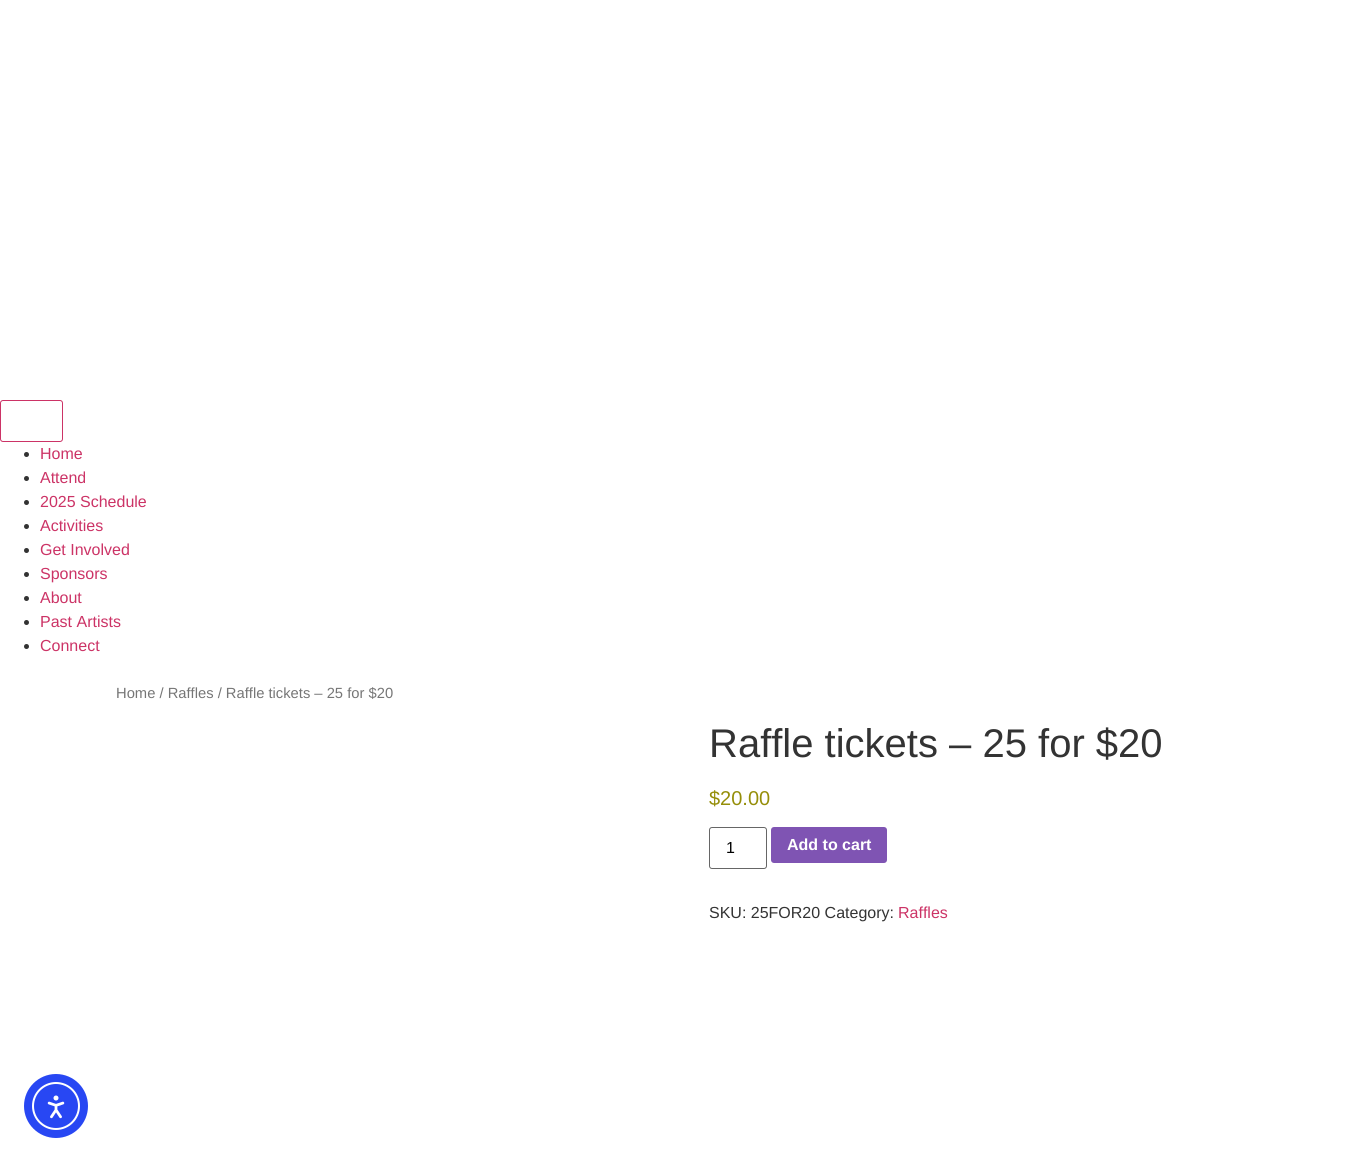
import math
import cairo

surface = cairo.ImageSurface(cairo.FORMAT_RGB24, 1372, 1162)
cr = cairo.Context(surface)
options = cairo.FontOptions()
options.set_hint_metrics(cairo.HINT_METRICS_OFF)
options.set_hint_style(cairo.HINT_STYLE_NONE)
cr.set_font_options(options)
cr.set_miter_limit(4)


def rgb(code):
    cr.set_source_rgb(*(v / 255 for v in bytes.fromhex(code[-6:])))


def rrect(x, y, w, h, r):
    cr.new_sub_path()
    for i, (u, v) in enumerate([(x + w - r, y + h - r), (x + r, y + h - r), (x + r, y + r), (x + w - r, y + r)]):
        cr.arc(u, v, r, i * math.pi / 2, (i + 1) * math.pi / 2)
    cr.close_path()


def image(path, x, y, w, h):
    cr.save()
    cr.set_source_surface(cairo.ImageSurface.create_from_png(path), x, y)
    cr.rectangle(x, y, w, h)
    cr.fill()
    cr.restore()


rgb("#ffffff")
cr.paint()
rrect(0.5, 400.5, 62, 41, 2.5)
rgb("#cc3366")
cr.set_line_width(1)
cr.stroke()
rgb("#333333")
cr.arc(26.5, 454.5, 2.5, 0, 2 * math.pi)
cr.fill()
cr.arc(26.5, 478.5, 2.5, 0, 2 * math.pi)
cr.fill()
cr.arc(26.5, 502.5, 2.5, 0, 2 * math.pi)
cr.fill()
cr.arc(26.5, 526.5, 2.5, 0, 2 * math.pi)
cr.fill()
cr.arc(26.5, 550.5, 2.5, 0, 2 * math.pi)
cr.fill()
cr.arc(26.5, 574.5, 2.5, 0, 2 * math.pi)
cr.fill()
cr.arc(26.5, 598.5, 2.5, 0, 2 * math.pi)
cr.fill()
cr.arc(26.5, 622.5, 2.5, 0, 2 * math.pi)
cr.fill()
cr.arc(26.5, 646.5, 2.5, 0, 2 * math.pi)
cr.fill()
rrect(709.5, 827.5, 57, 41, 2.5)
rgb("#666666")
cr.stroke()
rgb("#7f54b3")
rrect(771, 827, 116, 36, 3)
cr.fill()
rgb("#2847f3")
cr.arc(56, 1106, 32, 0, 2 * math.pi)
cr.fill()
cr.arc(56, 1106, 23, 0, 2 * math.pi)
rgb("#ffffff")
cr.set_line_width(2)
cr.stroke()
image("img/1.png", 47, 1095, 18, 24)
cr.select_font_face("Liberation Sans")
cr.set_font_size(16)
rgb("#cc3366")
for x, y, s in [
    (40, 459, "Home"),
    (40, 483, "Attend"),
    (40, 507, "2025 Schedule"),
    (40, 531, "Activities"),
    (40, 555, "Get Involved"),
    (40, 579, "Sponsors"),
    (40, 603, "About"),
    (40, 627, "Past Artists"),
    (40, 651, "Connect"),
]:
    cr.move_to(x, y)
    cr.show_text(s)
cr.set_font_size(14.75)
rgb("#767676")
cr.move_to(116, 698)
cr.show_text("Home / Raffles / Raffle tickets – 25 for $20")
cr.set_font_size(40)
rgb("#333333")
cr.move_to(709, 757)
cr.show_text("Raffle tickets – 25 for $20")
cr.set_font_size(20)
rgb("#958e09")
cr.move_to(709, 805)
cr.show_text("$20.00")
cr.set_font_size(16)
rgb("#000000")
cr.move_to(726, 853)
cr.show_text("1")
cr.select_font_face("Liberation Sans", cairo.FONT_SLANT_NORMAL, cairo.FONT_WEIGHT_BOLD)
rgb("#ffffff")
cr.move_to(787, 850)
cr.show_text("Add to cart")
cr.select_font_face("Liberation Sans")
rgb("#333333")
cr.move_to(709, 918)
cr.show_text("SKU: 25FOR20 Category:")
rgb("#cc3366")
cr.move_to(898, 918)
cr.show_text("Raffles")
surface.write_to_png("page.png")
